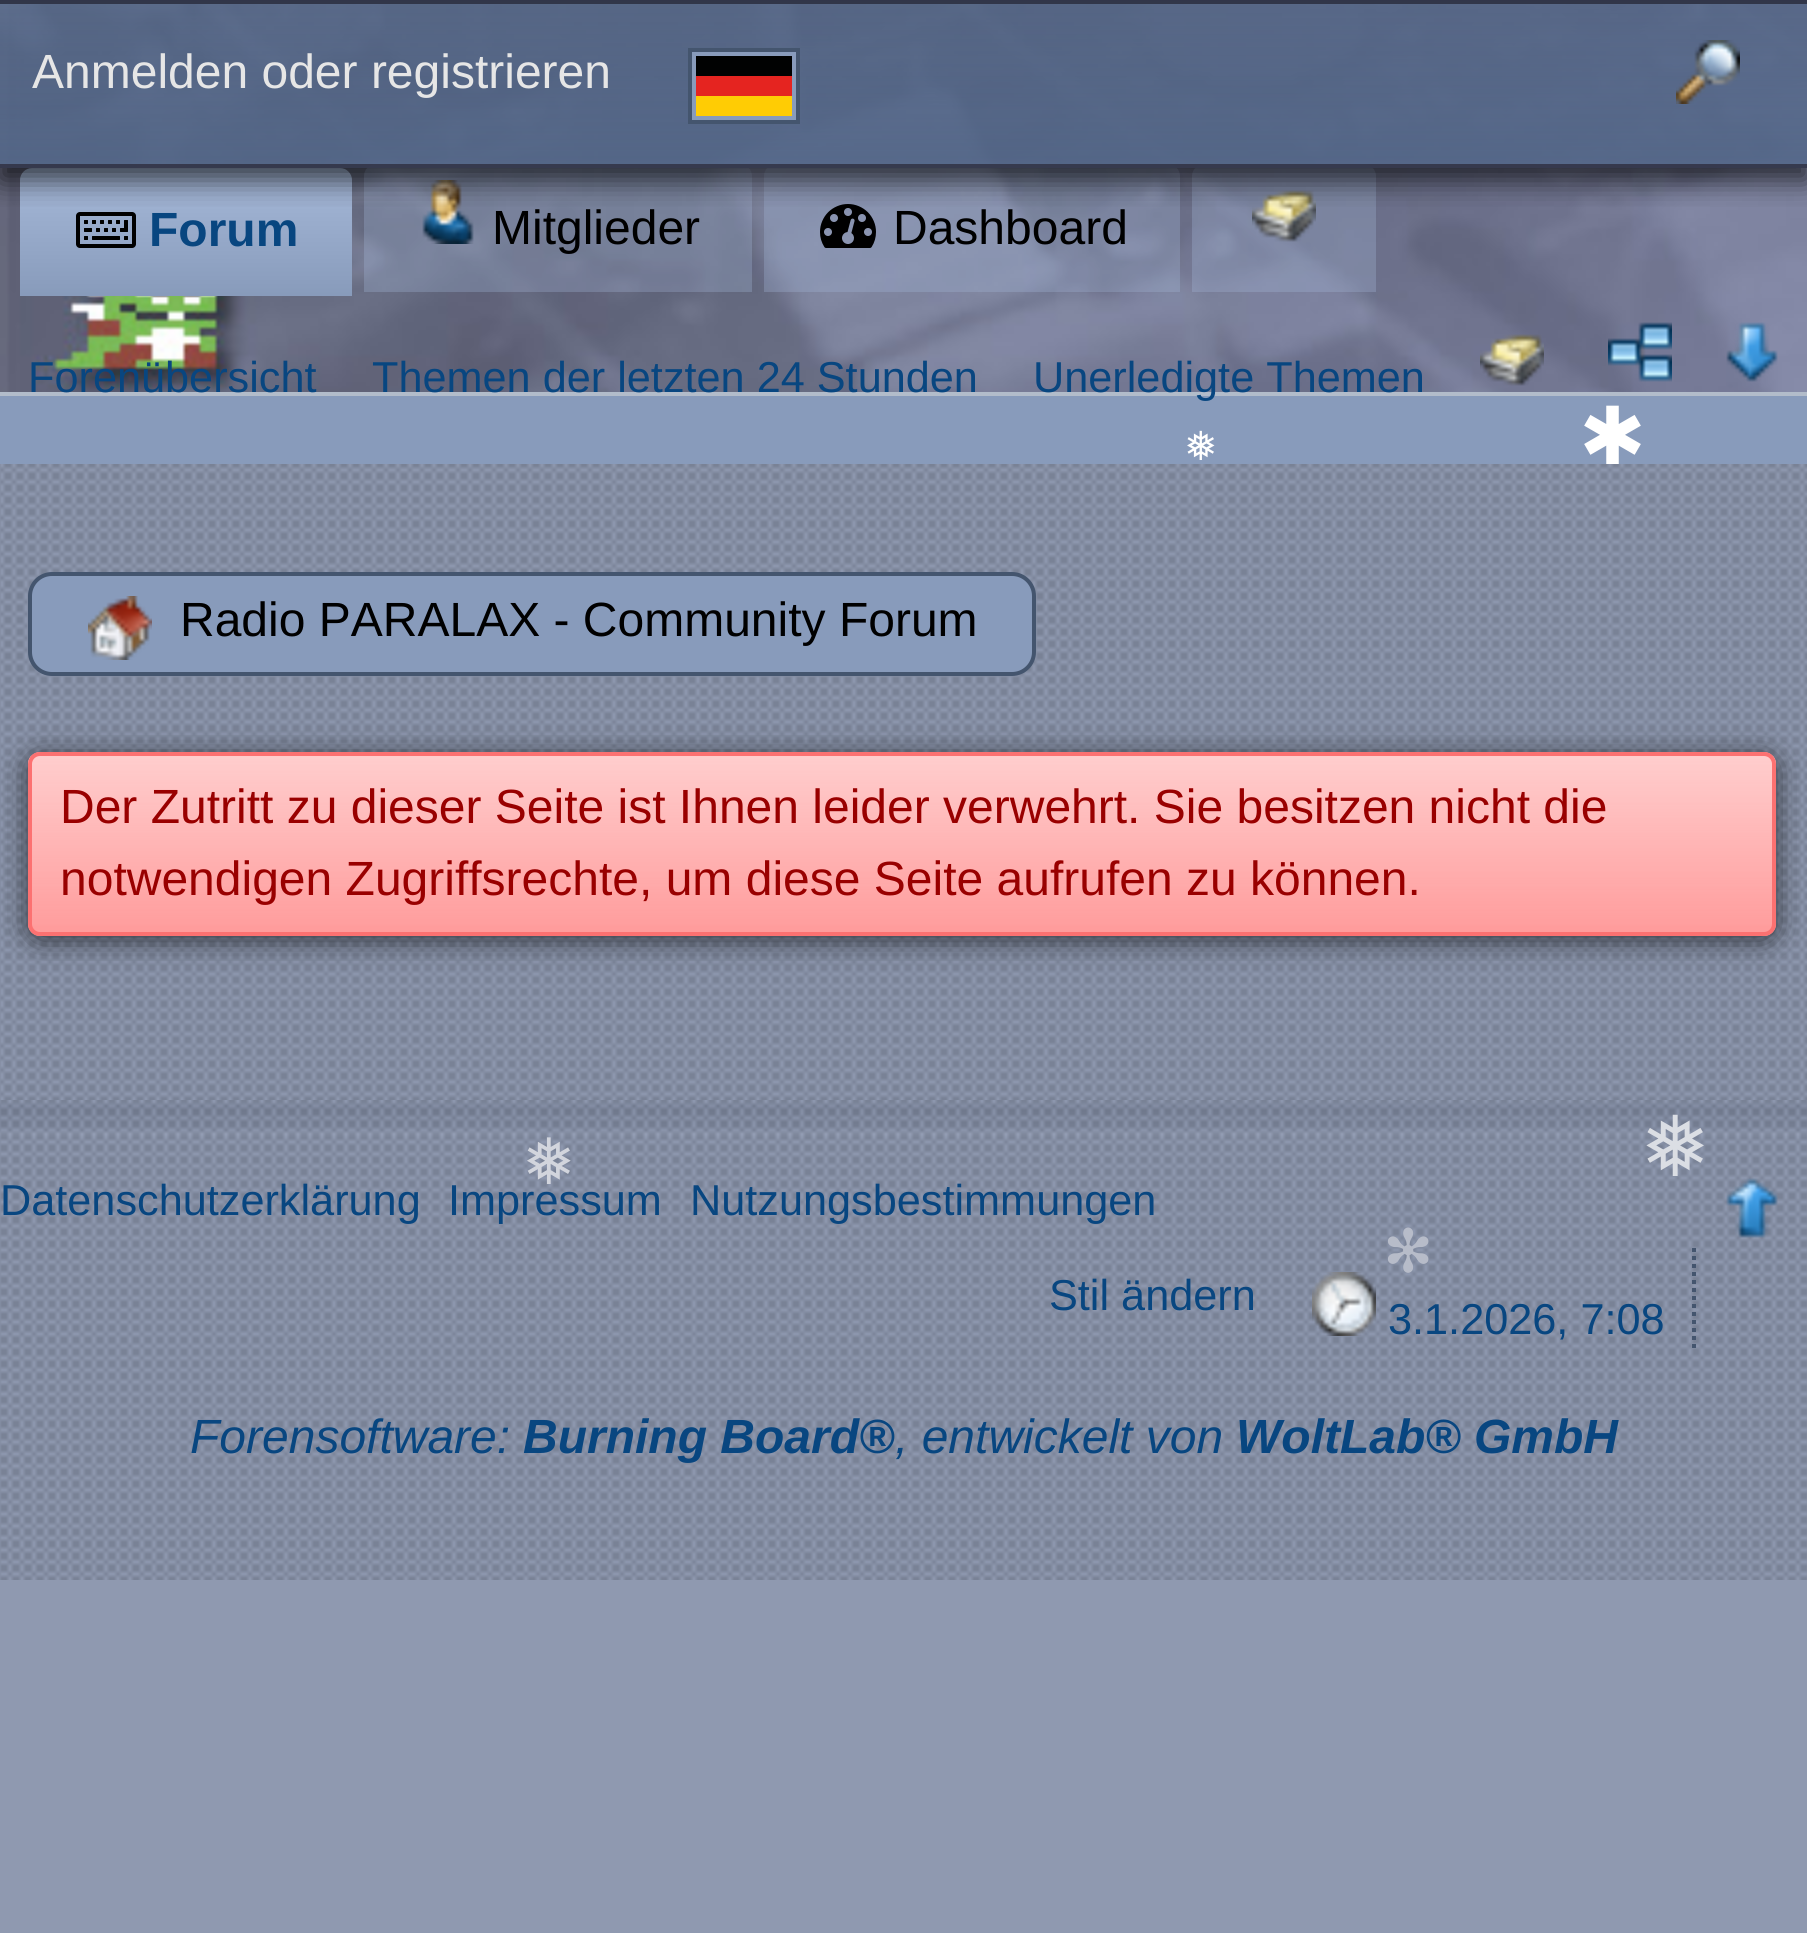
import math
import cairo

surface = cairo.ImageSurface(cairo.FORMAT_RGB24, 1807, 1933)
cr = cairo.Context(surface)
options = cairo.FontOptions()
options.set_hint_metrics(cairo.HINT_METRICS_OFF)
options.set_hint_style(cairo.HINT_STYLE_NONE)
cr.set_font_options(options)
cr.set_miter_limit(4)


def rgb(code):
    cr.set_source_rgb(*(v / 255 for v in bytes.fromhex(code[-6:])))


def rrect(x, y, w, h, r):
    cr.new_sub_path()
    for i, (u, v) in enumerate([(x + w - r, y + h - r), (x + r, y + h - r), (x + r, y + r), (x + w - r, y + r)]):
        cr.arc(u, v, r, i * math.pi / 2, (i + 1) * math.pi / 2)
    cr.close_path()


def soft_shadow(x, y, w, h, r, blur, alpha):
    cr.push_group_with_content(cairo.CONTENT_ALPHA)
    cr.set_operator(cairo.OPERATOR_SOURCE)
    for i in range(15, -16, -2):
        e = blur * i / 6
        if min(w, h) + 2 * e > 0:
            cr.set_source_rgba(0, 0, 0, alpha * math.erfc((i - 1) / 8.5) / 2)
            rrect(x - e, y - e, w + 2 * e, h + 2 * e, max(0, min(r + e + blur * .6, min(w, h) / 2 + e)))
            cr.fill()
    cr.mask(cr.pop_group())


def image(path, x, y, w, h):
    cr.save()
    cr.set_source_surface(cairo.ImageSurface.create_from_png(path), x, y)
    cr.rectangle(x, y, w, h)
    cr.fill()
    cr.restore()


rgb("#8f99b0")
cr.paint()
image("img/1.png", 0, 4, 1807, 388)
rgb("#b2bcca")
cr.rectangle(0, 392, 1807, 4)
cr.fill()
rgb("#889bbb")
cr.rectangle(0, 396, 1807, 68)
cr.fill()
gradient = cairo.LinearGradient(186, 168, 186, 296)
gradient.add_color_stop_rgba(0.01, 0.651, 0.725, 0.851, 1)
gradient.add_color_stop_rgba(0.99, 0.533, 0.608, 0.733, 1)
cr.set_source(gradient)
cr.new_path()
cr.move_to(32, 168)
cr.line_to(340, 168)
cr.curve_to(346.5, 168, 352, 173.5, 352, 180)
cr.line_to(352, 296)
cr.line_to(20, 296)
cr.line_to(20, 180)
cr.curve_to(20, 173.5, 25.5, 168, 32, 168)
cr.close_path()
cr.fill()
image("img/3.png", 76, 212, 60, 36)
cr.set_source_rgba(0.647, 0.722, 0.847, 0.3)
cr.new_path()
cr.move_to(376, 164)
cr.line_to(740, 164)
cr.curve_to(746.5, 164, 752, 169.5, 752, 176)
cr.line_to(752, 292)
cr.line_to(364, 292)
cr.line_to(364, 176)
cr.curve_to(364, 169.5, 369.5, 164, 376, 164)
cr.close_path()
cr.fill()
image("img/4.png", 422, 180, 52, 64)
cr.new_path()
cr.move_to(776, 164)
cr.line_to(1168, 164)
cr.curve_to(1174.5, 164, 1180, 169.5, 1180, 176)
cr.line_to(1180, 292)
cr.line_to(764, 292)
cr.line_to(764, 176)
cr.curve_to(764, 169.5, 769.5, 164, 776, 164)
cr.close_path()
cr.fill()
image("img/5.png", 820, 204, 56, 44)
cr.new_path()
cr.move_to(1204, 164)
cr.line_to(1364, 164)
cr.curve_to(1370.5, 164, 1376, 169.5, 1376, 176)
cr.line_to(1376, 292)
cr.line_to(1192, 292)
cr.line_to(1192, 176)
cr.curve_to(1192, 169.5, 1197.5, 164, 1204, 164)
cr.close_path()
cr.fill()
image("img/6.png", 1252, 190, 64, 52)
cr.save()
cr.rectangle(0, 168, 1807, 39)
cr.clip()
rgb("#000000")
soft_shadow(0, 12, 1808, 168, 0, 14, 0.7)
cr.restore()
gradient = cairo.LinearGradient(904, -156, 904, 4)
gradient.add_color_stop_rgba(0, 0.322, 0.4, 0.533, 0.75)
gradient.add_color_stop_rgba(1, 0.322, 0.4, 0.533, 0.9)
cr.set_source(gradient)
cr.rectangle(0, 0, 1807, 4)
cr.fill()
gradient = cairo.LinearGradient(904, 4, 904, 164)
gradient.add_color_stop_rgba(0, 0.322, 0.4, 0.533, 0.75)
gradient.add_color_stop_rgba(1, 0.322, 0.4, 0.533, 0.9)
cr.set_source(gradient)
cr.rectangle(0, 4, 1807, 160)
cr.fill()
gradient = cairo.LinearGradient(904, 164, 904, 324)
gradient.add_color_stop_rgba(0, 0.322, 0.4, 0.533, 0.75)
gradient.add_color_stop_rgba(1, 0.322, 0.4, 0.533, 0.9)
cr.set_source(gradient)
cr.rectangle(0, 164, 1807, 4)
cr.fill()
cr.set_source_rgba(0.176, 0.188, 0.259, 0.9)
cr.rectangle(0, 0, 1807, 4)
cr.fill()
cr.set_source_rgba(0.196, 0.208, 0.278, 0.9)
cr.rectangle(0, 164, 1807, 4)
cr.fill()
rgb("#889bbb")
cr.rectangle(690, 50, 108, 72)
cr.fill_preserve()
rgb("#44556e")
cr.set_line_width(4)
cr.stroke()
for x, y, w, h, color in [
    (696, 56, 96, 20, "#010202"),
    (696, 76, 96, 20, "#e52420"),
    (696, 96, 96, 20, "#ffcc04"),
]:
    rgb(color)
    cr.rectangle(x, y, w, h)
    cr.fill()
image("img/2.png", 1676, 40, 64, 64)
image("img/7.png", 1480, 334, 64, 52)
image("img/8.png", 1608, 322, 64, 60)
image("img/9.png", 1726, 322, 52, 60)
image("img/10.png", 0, 464, 1807, 636)
rgb("#889bbb")
rrect(30, 574, 1004, 100, 22)
cr.fill_preserve()
rgb("#44556e")
cr.stroke()
image("img/11.png", 88, 596, 64, 64)
rgb("#000000")
soft_shadow(28, 756, 1748, 184, 12, 14, 0.65)
rgb("#ff9c9c")
rrect(28, 752, 1748, 184, 12)
cr.fill()
cr.save()
rrect(28, 752, 1748, 184, 12)
cr.clip()
gradient = cairo.LinearGradient(902, 756, 902, 932)
gradient.add_color_stop_rgba(0, 1, 0.933, 0.933, 0.6)
gradient.add_color_stop_rgba(1, 1, 0.933, 0.933, 0)
cr.set_source(gradient)
cr.rectangle(28, 756, 1748, 170)
cr.fill()
cr.restore()
rrect(30, 754, 1744, 180, 10)
rgb("#fc7171")
cr.stroke()
image("img/12.png", 0, 1100, 1807, 480)
image("img/13.png", 1726, 1178, 52, 60)
cr.new_path()
cr.move_to(1694, 1248)
cr.line_to(1694, 1352)
rgb("#44556e")
cr.set_dash([4, 4])
cr.stroke()
image("img/14.png", 1312, 1272, 64, 64)
cr.select_font_face("Liberation Sans")
cr.set_font_size(48)
rgb("#e6e6e6")
cr.move_to(32, 88)
cr.show_text("Anmelden oder registrieren")
cr.select_font_face("Liberation Sans", cairo.FONT_SLANT_NORMAL, cairo.FONT_WEIGHT_BOLD)
rgb("#084680")
cr.move_to(149, 246)
cr.show_text("Forum")
cr.select_font_face("Liberation Sans")
rgb("#000000")
cr.move_to(492, 244)
cr.show_text("Mitglieder")
cr.move_to(893, 244)
cr.show_text("Dashboard")
cr.set_font_size(43.25)
rgb("#084680")
for x, y, s in [
    (28, 392, "Forenübersicht"),
    (372, 392, "Themen der letzten 24 Stunden"),
    (1033, 392, "Unerledigte Themen"),
]:
    cr.move_to(x, y)
    cr.show_text(s)
cr.select_font_face("DejaVu Sans")
cr.set_font_size(40)
rgb("#ffffff")
cr.move_to(1184, 460)
cr.show_text("❅")
cr.set_font_size(80)
cr.move_to(1579, 464)
cr.show_text("✱")
cr.set_font_size(64)
rgb("#d2d5dd")
cr.move_to(522, 1184)
cr.show_text("❅")
cr.set_font_size(84)
rgb("#dbdee4")
cr.move_to(1640, 1176)
cr.show_text("❅")
cr.set_font_size(60)
rgb("#b7bcc9")
cr.move_to(1383, 1272)
cr.show_text("✻")
cr.select_font_face("Liberation Sans")
cr.set_font_size(48)
rgb("#000000")
cr.move_to(180, 636)
cr.show_text("Radio PARALAX - Community Forum")
rgb("#990000")
cr.move_to(60, 823)
cr.show_text("Der Zutritt zu dieser Seite ist Ihnen leider verwehrt. Sie besitzen nicht die")
cr.move_to(60, 895)
cr.show_text("notwendigen Zugriffsrechte, um diese Seite aufrufen zu können.")
cr.set_font_size(43.25)
rgb("#084680")
for x, y, s in [
    (0, 1215, "Datenschutzerklärung"),
    (448, 1215, "Impressum"),
    (690, 1215, "Nutzungsbestimmungen"),
    (1049, 1310, "Stil ändern"),
    (1388, 1334, "3.1.2026, 7:08"),
]:
    cr.move_to(x, y)
    cr.show_text(s)
cr.select_font_face("Liberation Sans", cairo.FONT_SLANT_ITALIC)
cr.set_font_size(48)
cr.move_to(190, 1453)
cr.show_text("Forensoftware:")
cr.select_font_face("Liberation Sans", cairo.FONT_SLANT_ITALIC, cairo.FONT_WEIGHT_BOLD)
cr.move_to(523, 1453)
cr.show_text("Burning Board®")
cr.select_font_face("Liberation Sans", cairo.FONT_SLANT_ITALIC)
cr.move_to(895, 1453)
cr.show_text(", entwickelt von")
cr.select_font_face("Liberation Sans", cairo.FONT_SLANT_ITALIC, cairo.FONT_WEIGHT_BOLD)
cr.move_to(1236, 1453)
cr.show_text("WoltLab® GmbH")
surface.write_to_png("page.png")
